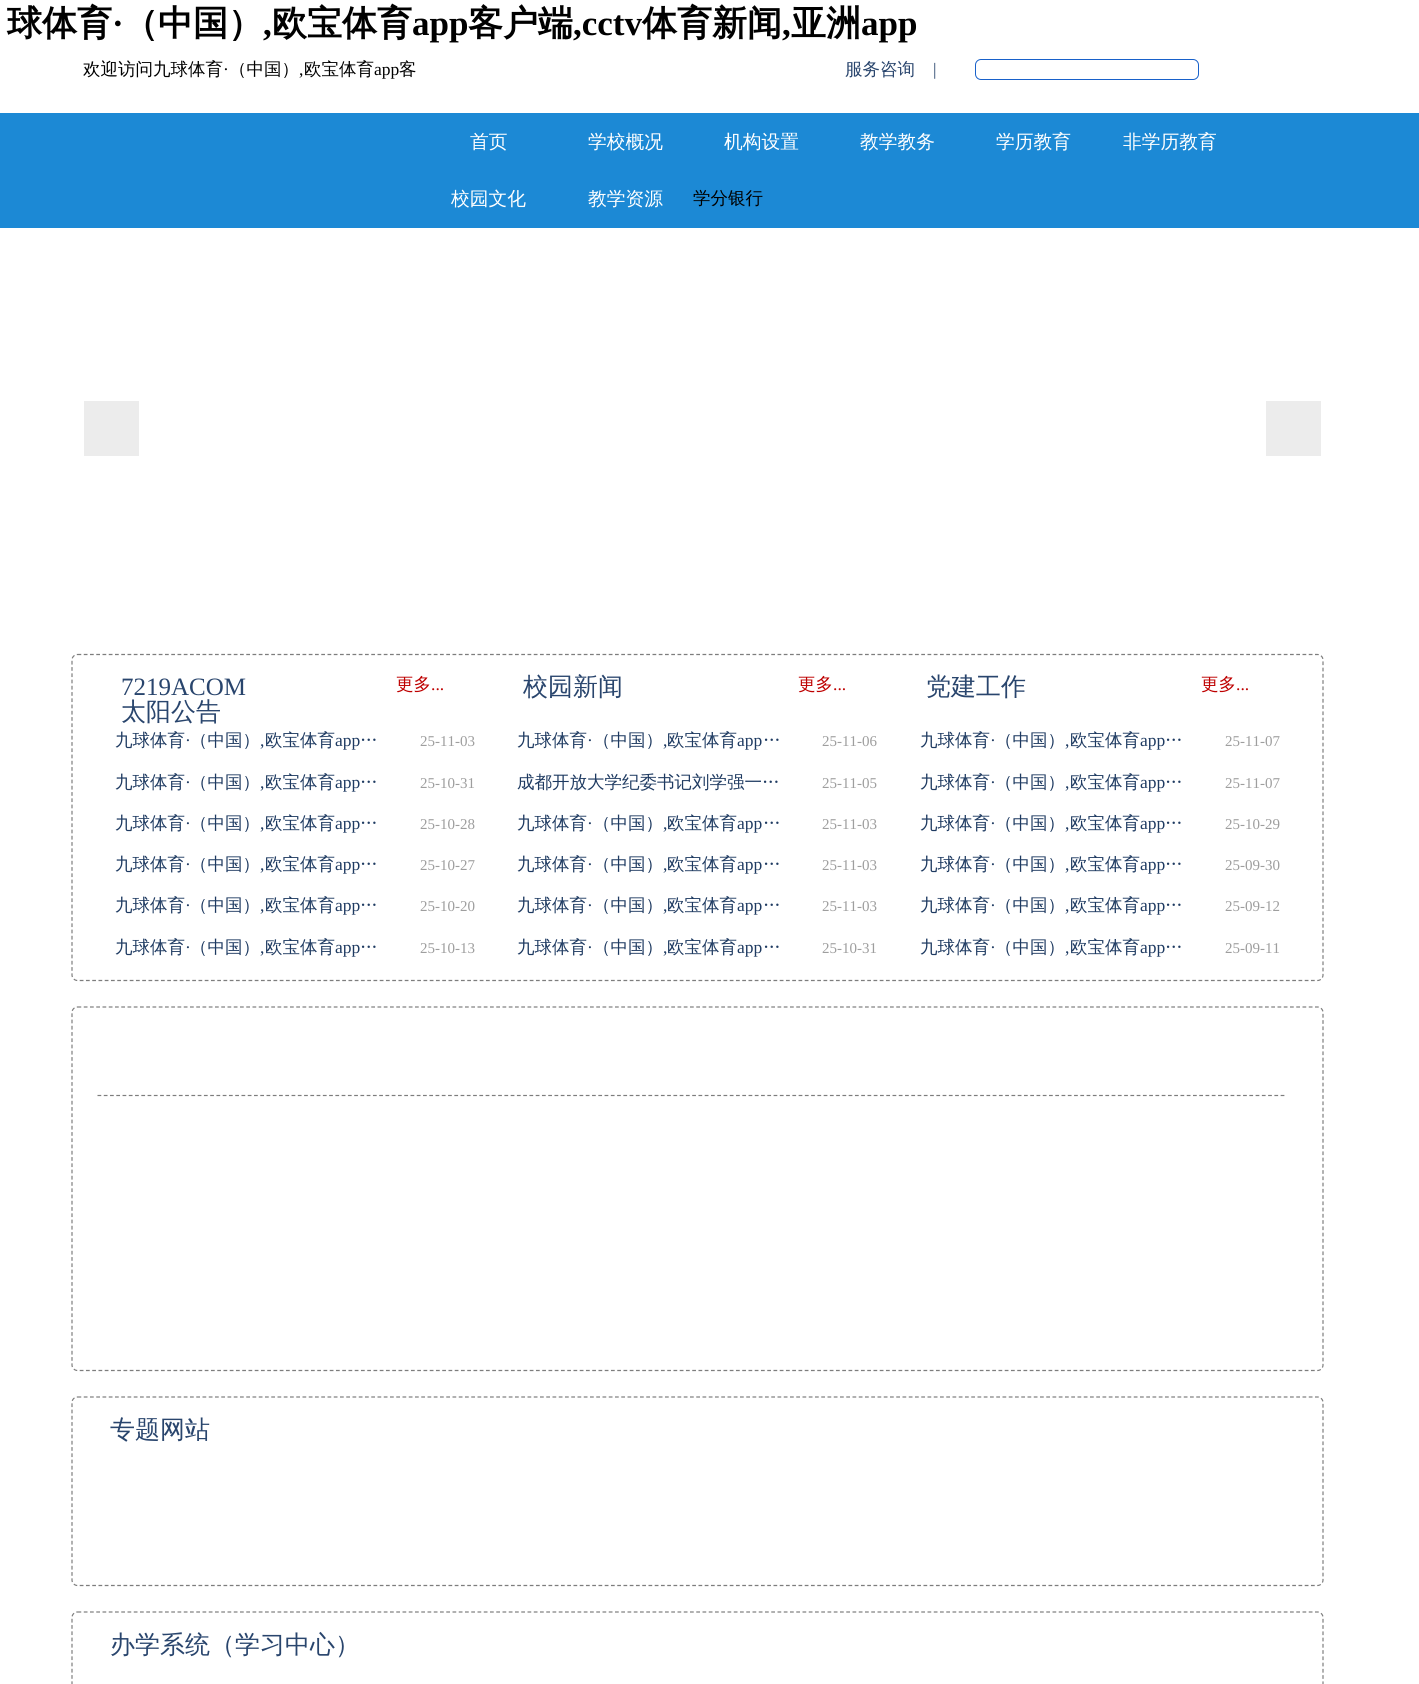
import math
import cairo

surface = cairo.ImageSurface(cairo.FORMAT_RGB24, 1419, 1684)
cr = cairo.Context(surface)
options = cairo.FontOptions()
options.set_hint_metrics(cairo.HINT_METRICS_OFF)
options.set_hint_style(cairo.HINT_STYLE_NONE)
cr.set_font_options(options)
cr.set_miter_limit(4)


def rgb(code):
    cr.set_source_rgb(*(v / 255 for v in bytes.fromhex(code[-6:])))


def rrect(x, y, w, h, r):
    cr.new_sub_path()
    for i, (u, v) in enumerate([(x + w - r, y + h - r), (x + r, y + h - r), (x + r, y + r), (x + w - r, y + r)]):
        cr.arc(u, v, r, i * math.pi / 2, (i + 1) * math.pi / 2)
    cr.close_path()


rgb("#ffffff")
cr.paint()
rrect(975.5, 59.5, 223, 20, 5.5)
rgb("#1861ca")
cr.set_line_width(1)
cr.stroke()
for x, y, w, h, color in [
    (0, 113, 1419, 115, "#1c89d5"),
    (84, 401, 55, 55, "#ececec"),
    (1266, 401, 55, 55, "#ececec"),
]:
    rgb(color)
    cr.rectangle(x, y, w, h)
    cr.fill()
cr.new_path()
cr.move_to(77.5, 654.5)
cr.line_to(1317.5, 654.5)
cr.curve_to(1320.5, 654.5, 1323, 657, 1323, 660)
cr.line_to(1323, 975)
cr.curve_to(1323, 978, 1320.5, 980.5, 1317.5, 980.5)
cr.line_to(77.5, 980.5)
cr.curve_to(74.5, 980.5, 72, 978, 72, 975)
cr.line_to(72, 660)
cr.curve_to(72, 657, 74.5, 654.5, 77.5, 654.5)
cr.close_path()
rgb("#7d7d7d")
cr.set_line_width(1.2)
cr.set_dash([3.75, 2.5])
cr.stroke()
cr.new_path()
cr.move_to(77.5, 1007)
cr.line_to(1317.5, 1007)
cr.curve_to(1320.5, 1007, 1323, 1009.5, 1323, 1012.5)
cr.line_to(1323, 1365)
cr.curve_to(1323, 1368, 1320.5, 1370.5, 1317.5, 1370.5)
cr.line_to(77.5, 1370.5)
cr.curve_to(74.5, 1370.5, 72, 1368, 72, 1365)
cr.line_to(72, 1012.5)
cr.curve_to(72, 1009.5, 74.5, 1007, 77.5, 1007)
cr.close_path()
cr.stroke()
cr.new_path()
cr.move_to(97.5, 1095.5)
cr.line_to(1285, 1095.5)
cr.set_dash([3.75, 2.51])
cr.stroke()
cr.new_path()
cr.move_to(77.5, 1397)
cr.line_to(1317.5, 1397)
cr.curve_to(1320.5, 1397, 1323, 1399.5, 1323, 1402.5)
cr.line_to(1323, 1580)
cr.curve_to(1323, 1583, 1320.5, 1585.5, 1317.5, 1585.5)
cr.line_to(77.5, 1585.5)
cr.curve_to(74.5, 1585.5, 72, 1583, 72, 1580)
cr.line_to(72, 1402.5)
cr.curve_to(72, 1399.5, 74.5, 1397, 77.5, 1397)
cr.close_path()
cr.set_dash([3.75, 2.5])
cr.stroke()
cr.new_path()
cr.move_to(77.5, 1612)
cr.line_to(1317.5, 1612)
cr.curve_to(1320.5, 1612, 1323, 1614.5, 1323, 1617.5)
cr.line_to(1323, 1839)
cr.curve_to(1323, 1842, 1320.5, 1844.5, 1317.5, 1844.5)
cr.line_to(77.5, 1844.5)
cr.curve_to(74.5, 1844.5, 72, 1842, 72, 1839)
cr.line_to(72, 1617.5)
cr.curve_to(72, 1614.5, 74.5, 1612, 77.5, 1612)
cr.close_path()
cr.stroke()
cr.select_font_face("WenQuanYi Zen Hei", cairo.FONT_SLANT_NORMAL, cairo.FONT_WEIGHT_BOLD)
cr.set_font_size(35)
rgb("#000000")
cr.move_to(7, 35)
cr.show_text("球体育")
cr.select_font_face("Liberation Serif", cairo.FONT_SLANT_NORMAL, cairo.FONT_WEIGHT_BOLD)
cr.move_to(112, 35)
cr.show_text("·")
cr.select_font_face("WenQuanYi Zen Hei", cairo.FONT_SLANT_NORMAL, cairo.FONT_WEIGHT_BOLD)
cr.move_to(123, 35)
cr.show_text("（中国）")
cr.move_to(272, 35)
cr.show_text("欧宝体育")
cr.select_font_face("Liberation Serif", cairo.FONT_SLANT_NORMAL, cairo.FONT_WEIGHT_BOLD)
cr.move_to(412, 35)
cr.show_text("app")
cr.select_font_face("WenQuanYi Zen Hei", cairo.FONT_SLANT_NORMAL, cairo.FONT_WEIGHT_BOLD)
cr.move_to(468, 35)
cr.show_text("客户端")
cr.select_font_face("Liberation Serif", cairo.FONT_SLANT_NORMAL, cairo.FONT_WEIGHT_BOLD)
cr.move_to(573, 35)
cr.show_text(",cctv")
cr.select_font_face("WenQuanYi Zen Hei", cairo.FONT_SLANT_NORMAL, cairo.FONT_WEIGHT_BOLD)
cr.move_to(642, 35)
cr.show_text("体育新闻")
cr.move_to(791, 35)
cr.show_text("亚洲")
cr.select_font_face("Liberation Serif", cairo.FONT_SLANT_NORMAL, cairo.FONT_WEIGHT_BOLD)
for x, y, s in [
    (861, 35, "app"),
    (263, 35, ","),
    (782, 35, ","),
]:
    cr.move_to(x, y)
    cr.show_text(s)
cr.select_font_face("WenQuanYi Zen Hei Medium")
cr.set_font_size(17.5)
cr.move_to(83, 75)
cr.show_text("欢迎访问九球体育")
cr.select_font_face("Liberation Serif")
cr.move_to(223, 75)
cr.show_text("·")
cr.select_font_face("WenQuanYi Zen Hei Medium")
cr.move_to(229, 75)
cr.show_text("（中国）")
cr.move_to(304, 75)
cr.show_text("欧宝体育")
cr.select_font_face("Liberation Serif")
cr.move_to(374, 75)
cr.show_text("app")
cr.select_font_face("WenQuanYi Zen Hei Medium")
cr.move_to(399, 75)
cr.show_text("客")
cr.select_font_face("Liberation Serif")
cr.move_to(299, 75)
cr.show_text(",")
cr.select_font_face("WenQuanYi Zen Hei Medium")
rgb("#29456d")
cr.move_to(845, 75)
cr.show_text("服务咨询")
cr.select_font_face("Liberation Serif")
cr.move_to(933, 75)
cr.show_text("|")
cr.select_font_face("WenQuanYi Zen Hei Medium")
cr.set_font_size(18.75)
rgb("#ffffff")
for x, y, s in [
    (470, 148, "首页"),
    (588, 148, "学校概况"),
    (724, 148, "机构设置"),
    (860, 148, "教学教务"),
    (996, 148, "学历教育"),
    (1123, 148, "非学历教育"),
    (451, 205, "校园文化"),
    (588, 205, "教学资源"),
]:
    cr.move_to(x, y)
    cr.show_text(s)
cr.set_font_size(17.5)
rgb("#000000")
cr.move_to(693, 204)
cr.show_text("学分银行")
cr.select_font_face("Liberation Serif")
cr.set_font_size(25)
rgb("#29456d")
cr.move_to(121, 695)
cr.show_text("7219ACOM")
cr.select_font_face("WenQuanYi Zen Hei Medium")
cr.move_to(121, 720)
cr.show_text("太阳公告")
cr.set_font_size(17.5)
rgb("#be0000")
cr.move_to(396, 690)
cr.show_text("更多")
cr.select_font_face("Liberation Serif")
cr.move_to(431, 690)
cr.show_text("...")
cr.select_font_face("WenQuanYi Zen Hei Medium")
rgb("#1e3a61")
cr.move_to(115, 746)
cr.show_text("九球体育")
cr.select_font_face("Liberation Serif")
cr.move_to(185, 746)
cr.show_text("·")
cr.select_font_face("WenQuanYi Zen Hei Medium")
cr.move_to(190, 746)
cr.show_text("（中国）")
cr.move_to(265, 746)
cr.show_text("欧宝体育")
cr.select_font_face("Liberation Serif")
cr.move_to(335, 746)
cr.show_text("app")
cr.select_font_face("WenQuanYi Zen Hei Medium")
cr.move_to(360, 746)
cr.show_text("…")
cr.select_font_face("Liberation Serif")
cr.move_to(260, 746)
cr.show_text(",")
cr.set_font_size(15)
rgb("#9e9e9e")
cr.move_to(420, 746)
cr.show_text("25-11-03")
cr.select_font_face("WenQuanYi Zen Hei Medium")
cr.set_font_size(17.5)
rgb("#1e3a61")
cr.move_to(115, 788)
cr.show_text("九球体育")
cr.select_font_face("Liberation Serif")
cr.move_to(185, 788)
cr.show_text("·")
cr.select_font_face("WenQuanYi Zen Hei Medium")
cr.move_to(190, 788)
cr.show_text("（中国）")
cr.move_to(265, 788)
cr.show_text("欧宝体育")
cr.select_font_face("Liberation Serif")
cr.move_to(335, 788)
cr.show_text("app")
cr.select_font_face("WenQuanYi Zen Hei Medium")
cr.move_to(360, 788)
cr.show_text("…")
cr.select_font_face("Liberation Serif")
cr.move_to(260, 788)
cr.show_text(",")
cr.set_font_size(15)
rgb("#9e9e9e")
cr.move_to(420, 788)
cr.show_text("25-10-31")
cr.select_font_face("WenQuanYi Zen Hei Medium")
cr.set_font_size(17.5)
rgb("#1e3a61")
cr.move_to(115, 829)
cr.show_text("九球体育")
cr.select_font_face("Liberation Serif")
cr.move_to(185, 829)
cr.show_text("·")
cr.select_font_face("WenQuanYi Zen Hei Medium")
cr.move_to(190, 829)
cr.show_text("（中国）")
cr.move_to(265, 829)
cr.show_text("欧宝体育")
cr.select_font_face("Liberation Serif")
cr.move_to(335, 829)
cr.show_text("app")
cr.select_font_face("WenQuanYi Zen Hei Medium")
cr.move_to(360, 829)
cr.show_text("…")
cr.select_font_face("Liberation Serif")
cr.move_to(260, 829)
cr.show_text(",")
cr.set_font_size(15)
rgb("#9e9e9e")
cr.move_to(420, 829)
cr.show_text("25-10-28")
cr.select_font_face("WenQuanYi Zen Hei Medium")
cr.set_font_size(17.5)
rgb("#1e3a61")
cr.move_to(115, 870)
cr.show_text("九球体育")
cr.select_font_face("Liberation Serif")
cr.move_to(185, 870)
cr.show_text("·")
cr.select_font_face("WenQuanYi Zen Hei Medium")
cr.move_to(190, 870)
cr.show_text("（中国）")
cr.move_to(265, 870)
cr.show_text("欧宝体育")
cr.select_font_face("Liberation Serif")
cr.move_to(335, 870)
cr.show_text("app")
cr.select_font_face("WenQuanYi Zen Hei Medium")
cr.move_to(360, 870)
cr.show_text("…")
cr.select_font_face("Liberation Serif")
cr.move_to(260, 870)
cr.show_text(",")
cr.set_font_size(15)
rgb("#9e9e9e")
cr.move_to(420, 870)
cr.show_text("25-10-27")
cr.select_font_face("WenQuanYi Zen Hei Medium")
cr.set_font_size(17.5)
rgb("#1e3a61")
cr.move_to(115, 911)
cr.show_text("九球体育")
cr.select_font_face("Liberation Serif")
cr.move_to(185, 911)
cr.show_text("·")
cr.select_font_face("WenQuanYi Zen Hei Medium")
cr.move_to(190, 911)
cr.show_text("（中国）")
cr.move_to(265, 911)
cr.show_text("欧宝体育")
cr.select_font_face("Liberation Serif")
cr.move_to(335, 911)
cr.show_text("app")
cr.select_font_face("WenQuanYi Zen Hei Medium")
cr.move_to(360, 911)
cr.show_text("…")
cr.select_font_face("Liberation Serif")
cr.move_to(260, 911)
cr.show_text(",")
cr.set_font_size(15)
rgb("#9e9e9e")
cr.move_to(420, 911)
cr.show_text("25-10-20")
cr.select_font_face("WenQuanYi Zen Hei Medium")
cr.set_font_size(17.5)
rgb("#1e3a61")
cr.move_to(115, 953)
cr.show_text("九球体育")
cr.select_font_face("Liberation Serif")
cr.move_to(185, 953)
cr.show_text("·")
cr.select_font_face("WenQuanYi Zen Hei Medium")
cr.move_to(190, 953)
cr.show_text("（中国）")
cr.move_to(265, 953)
cr.show_text("欧宝体育")
cr.select_font_face("Liberation Serif")
cr.move_to(335, 953)
cr.show_text("app")
cr.select_font_face("WenQuanYi Zen Hei Medium")
cr.move_to(360, 953)
cr.show_text("…")
cr.select_font_face("Liberation Serif")
cr.move_to(260, 953)
cr.show_text(",")
cr.set_font_size(15)
rgb("#9e9e9e")
cr.move_to(420, 953)
cr.show_text("25-10-13")
cr.select_font_face("WenQuanYi Zen Hei Medium")
cr.set_font_size(25)
rgb("#29456d")
cr.move_to(523, 695)
cr.show_text("校园新闻")
cr.set_font_size(17.5)
rgb("#be0000")
cr.move_to(798, 690)
cr.show_text("更多")
cr.select_font_face("Liberation Serif")
cr.move_to(833, 690)
cr.show_text("...")
cr.select_font_face("WenQuanYi Zen Hei Medium")
rgb("#1e3a61")
cr.move_to(517, 746)
cr.show_text("九球体育")
cr.select_font_face("Liberation Serif")
cr.move_to(587, 746)
cr.show_text("·")
cr.select_font_face("WenQuanYi Zen Hei Medium")
cr.move_to(593, 746)
cr.show_text("（中国）")
cr.move_to(667, 746)
cr.show_text("欧宝体育")
cr.select_font_face("Liberation Serif")
cr.move_to(737, 746)
cr.show_text("app")
cr.select_font_face("WenQuanYi Zen Hei Medium")
cr.move_to(763, 746)
cr.show_text("…")
cr.select_font_face("Liberation Serif")
cr.move_to(663, 746)
cr.show_text(",")
cr.set_font_size(15)
rgb("#9e9e9e")
cr.move_to(822, 746)
cr.show_text("25-11-06")
cr.select_font_face("WenQuanYi Zen Hei Medium")
cr.set_font_size(17.5)
rgb("#1e3a61")
cr.move_to(517, 788)
cr.show_text("成都开放大学纪委书记刘学强一…")
cr.select_font_face("Liberation Serif")
cr.set_font_size(15)
rgb("#9e9e9e")
cr.move_to(822, 788)
cr.show_text("25-11-05")
cr.select_font_face("WenQuanYi Zen Hei Medium")
cr.set_font_size(17.5)
rgb("#1e3a61")
cr.move_to(517, 829)
cr.show_text("九球体育")
cr.select_font_face("Liberation Serif")
cr.move_to(587, 829)
cr.show_text("·")
cr.select_font_face("WenQuanYi Zen Hei Medium")
cr.move_to(593, 829)
cr.show_text("（中国）")
cr.move_to(667, 829)
cr.show_text("欧宝体育")
cr.select_font_face("Liberation Serif")
cr.move_to(737, 829)
cr.show_text("app")
cr.select_font_face("WenQuanYi Zen Hei Medium")
cr.move_to(763, 829)
cr.show_text("…")
cr.select_font_face("Liberation Serif")
cr.move_to(663, 829)
cr.show_text(",")
cr.set_font_size(15)
rgb("#9e9e9e")
cr.move_to(822, 829)
cr.show_text("25-11-03")
cr.select_font_face("WenQuanYi Zen Hei Medium")
cr.set_font_size(17.5)
rgb("#1e3a61")
cr.move_to(517, 870)
cr.show_text("九球体育")
cr.select_font_face("Liberation Serif")
cr.move_to(587, 870)
cr.show_text("·")
cr.select_font_face("WenQuanYi Zen Hei Medium")
cr.move_to(593, 870)
cr.show_text("（中国）")
cr.move_to(667, 870)
cr.show_text("欧宝体育")
cr.select_font_face("Liberation Serif")
cr.move_to(737, 870)
cr.show_text("app")
cr.select_font_face("WenQuanYi Zen Hei Medium")
cr.move_to(763, 870)
cr.show_text("…")
cr.select_font_face("Liberation Serif")
cr.move_to(663, 870)
cr.show_text(",")
cr.set_font_size(15)
rgb("#9e9e9e")
cr.move_to(822, 870)
cr.show_text("25-11-03")
cr.select_font_face("WenQuanYi Zen Hei Medium")
cr.set_font_size(17.5)
rgb("#1e3a61")
cr.move_to(517, 911)
cr.show_text("九球体育")
cr.select_font_face("Liberation Serif")
cr.move_to(587, 911)
cr.show_text("·")
cr.select_font_face("WenQuanYi Zen Hei Medium")
cr.move_to(593, 911)
cr.show_text("（中国）")
cr.move_to(667, 911)
cr.show_text("欧宝体育")
cr.select_font_face("Liberation Serif")
cr.move_to(737, 911)
cr.show_text("app")
cr.select_font_face("WenQuanYi Zen Hei Medium")
cr.move_to(763, 911)
cr.show_text("…")
cr.select_font_face("Liberation Serif")
cr.move_to(663, 911)
cr.show_text(",")
cr.set_font_size(15)
rgb("#9e9e9e")
cr.move_to(822, 911)
cr.show_text("25-11-03")
cr.select_font_face("WenQuanYi Zen Hei Medium")
cr.set_font_size(17.5)
rgb("#1e3a61")
cr.move_to(517, 953)
cr.show_text("九球体育")
cr.select_font_face("Liberation Serif")
cr.move_to(587, 953)
cr.show_text("·")
cr.select_font_face("WenQuanYi Zen Hei Medium")
cr.move_to(593, 953)
cr.show_text("（中国）")
cr.move_to(667, 953)
cr.show_text("欧宝体育")
cr.select_font_face("Liberation Serif")
cr.move_to(737, 953)
cr.show_text("app")
cr.select_font_face("WenQuanYi Zen Hei Medium")
cr.move_to(763, 953)
cr.show_text("…")
cr.select_font_face("Liberation Serif")
cr.move_to(663, 953)
cr.show_text(",")
cr.set_font_size(15)
rgb("#9e9e9e")
cr.move_to(822, 953)
cr.show_text("25-10-31")
cr.select_font_face("WenQuanYi Zen Hei Medium")
cr.set_font_size(25)
rgb("#29456d")
cr.move_to(926, 695)
cr.show_text("党建工作")
cr.set_font_size(17.5)
rgb("#be0000")
cr.move_to(1201, 690)
cr.show_text("更多")
cr.select_font_face("Liberation Serif")
cr.move_to(1236, 690)
cr.show_text("...")
cr.select_font_face("WenQuanYi Zen Hei Medium")
rgb("#1e3a61")
cr.move_to(920, 746)
cr.show_text("九球体育")
cr.select_font_face("Liberation Serif")
cr.move_to(990, 746)
cr.show_text("·")
cr.select_font_face("WenQuanYi Zen Hei Medium")
cr.move_to(995, 746)
cr.show_text("（中国）")
cr.move_to(1070, 746)
cr.show_text("欧宝体育")
cr.select_font_face("Liberation Serif")
cr.move_to(1140, 746)
cr.show_text("app")
cr.select_font_face("WenQuanYi Zen Hei Medium")
cr.move_to(1165, 746)
cr.show_text("…")
cr.select_font_face("Liberation Serif")
cr.move_to(1065, 746)
cr.show_text(",")
cr.set_font_size(15)
rgb("#9e9e9e")
cr.move_to(1225, 746)
cr.show_text("25-11-07")
cr.select_font_face("WenQuanYi Zen Hei Medium")
cr.set_font_size(17.5)
rgb("#1e3a61")
cr.move_to(920, 788)
cr.show_text("九球体育")
cr.select_font_face("Liberation Serif")
cr.move_to(990, 788)
cr.show_text("·")
cr.select_font_face("WenQuanYi Zen Hei Medium")
cr.move_to(995, 788)
cr.show_text("（中国）")
cr.move_to(1070, 788)
cr.show_text("欧宝体育")
cr.select_font_face("Liberation Serif")
cr.move_to(1140, 788)
cr.show_text("app")
cr.select_font_face("WenQuanYi Zen Hei Medium")
cr.move_to(1165, 788)
cr.show_text("…")
cr.select_font_face("Liberation Serif")
cr.move_to(1065, 788)
cr.show_text(",")
cr.set_font_size(15)
rgb("#9e9e9e")
cr.move_to(1225, 788)
cr.show_text("25-11-07")
cr.select_font_face("WenQuanYi Zen Hei Medium")
cr.set_font_size(17.5)
rgb("#1e3a61")
cr.move_to(920, 829)
cr.show_text("九球体育")
cr.select_font_face("Liberation Serif")
cr.move_to(990, 829)
cr.show_text("·")
cr.select_font_face("WenQuanYi Zen Hei Medium")
cr.move_to(995, 829)
cr.show_text("（中国）")
cr.move_to(1070, 829)
cr.show_text("欧宝体育")
cr.select_font_face("Liberation Serif")
cr.move_to(1140, 829)
cr.show_text("app")
cr.select_font_face("WenQuanYi Zen Hei Medium")
cr.move_to(1165, 829)
cr.show_text("…")
cr.select_font_face("Liberation Serif")
cr.move_to(1065, 829)
cr.show_text(",")
cr.set_font_size(15)
rgb("#9e9e9e")
cr.move_to(1225, 829)
cr.show_text("25-10-29")
cr.select_font_face("WenQuanYi Zen Hei Medium")
cr.set_font_size(17.5)
rgb("#1e3a61")
cr.move_to(920, 870)
cr.show_text("九球体育")
cr.select_font_face("Liberation Serif")
cr.move_to(990, 870)
cr.show_text("·")
cr.select_font_face("WenQuanYi Zen Hei Medium")
cr.move_to(995, 870)
cr.show_text("（中国）")
cr.move_to(1070, 870)
cr.show_text("欧宝体育")
cr.select_font_face("Liberation Serif")
cr.move_to(1140, 870)
cr.show_text("app")
cr.select_font_face("WenQuanYi Zen Hei Medium")
cr.move_to(1165, 870)
cr.show_text("…")
cr.select_font_face("Liberation Serif")
cr.move_to(1065, 870)
cr.show_text(",")
cr.set_font_size(15)
rgb("#9e9e9e")
cr.move_to(1225, 870)
cr.show_text("25-09-30")
cr.select_font_face("WenQuanYi Zen Hei Medium")
cr.set_font_size(17.5)
rgb("#1e3a61")
cr.move_to(920, 911)
cr.show_text("九球体育")
cr.select_font_face("Liberation Serif")
cr.move_to(990, 911)
cr.show_text("·")
cr.select_font_face("WenQuanYi Zen Hei Medium")
cr.move_to(995, 911)
cr.show_text("（中国）")
cr.move_to(1070, 911)
cr.show_text("欧宝体育")
cr.select_font_face("Liberation Serif")
cr.move_to(1140, 911)
cr.show_text("app")
cr.select_font_face("WenQuanYi Zen Hei Medium")
cr.move_to(1165, 911)
cr.show_text("…")
cr.select_font_face("Liberation Serif")
cr.move_to(1065, 911)
cr.show_text(",")
cr.set_font_size(15)
rgb("#9e9e9e")
cr.move_to(1225, 911)
cr.show_text("25-09-12")
cr.select_font_face("WenQuanYi Zen Hei Medium")
cr.set_font_size(17.5)
rgb("#1e3a61")
cr.move_to(920, 953)
cr.show_text("九球体育")
cr.select_font_face("Liberation Serif")
cr.move_to(990, 953)
cr.show_text("·")
cr.select_font_face("WenQuanYi Zen Hei Medium")
cr.move_to(995, 953)
cr.show_text("（中国）")
cr.move_to(1070, 953)
cr.show_text("欧宝体育")
cr.select_font_face("Liberation Serif")
cr.move_to(1140, 953)
cr.show_text("app")
cr.select_font_face("WenQuanYi Zen Hei Medium")
cr.move_to(1165, 953)
cr.show_text("…")
cr.select_font_face("Liberation Serif")
cr.move_to(1065, 953)
cr.show_text(",")
cr.set_font_size(15)
rgb("#9e9e9e")
cr.move_to(1225, 953)
cr.show_text("25-09-11")
cr.select_font_face("WenQuanYi Zen Hei Medium")
cr.set_font_size(25)
rgb("#29456d")
cr.move_to(110, 1438)
cr.show_text("专题网站")
cr.move_to(110, 1653)
cr.show_text("办学系统（学习中心）")
surface.write_to_png("page.png")
